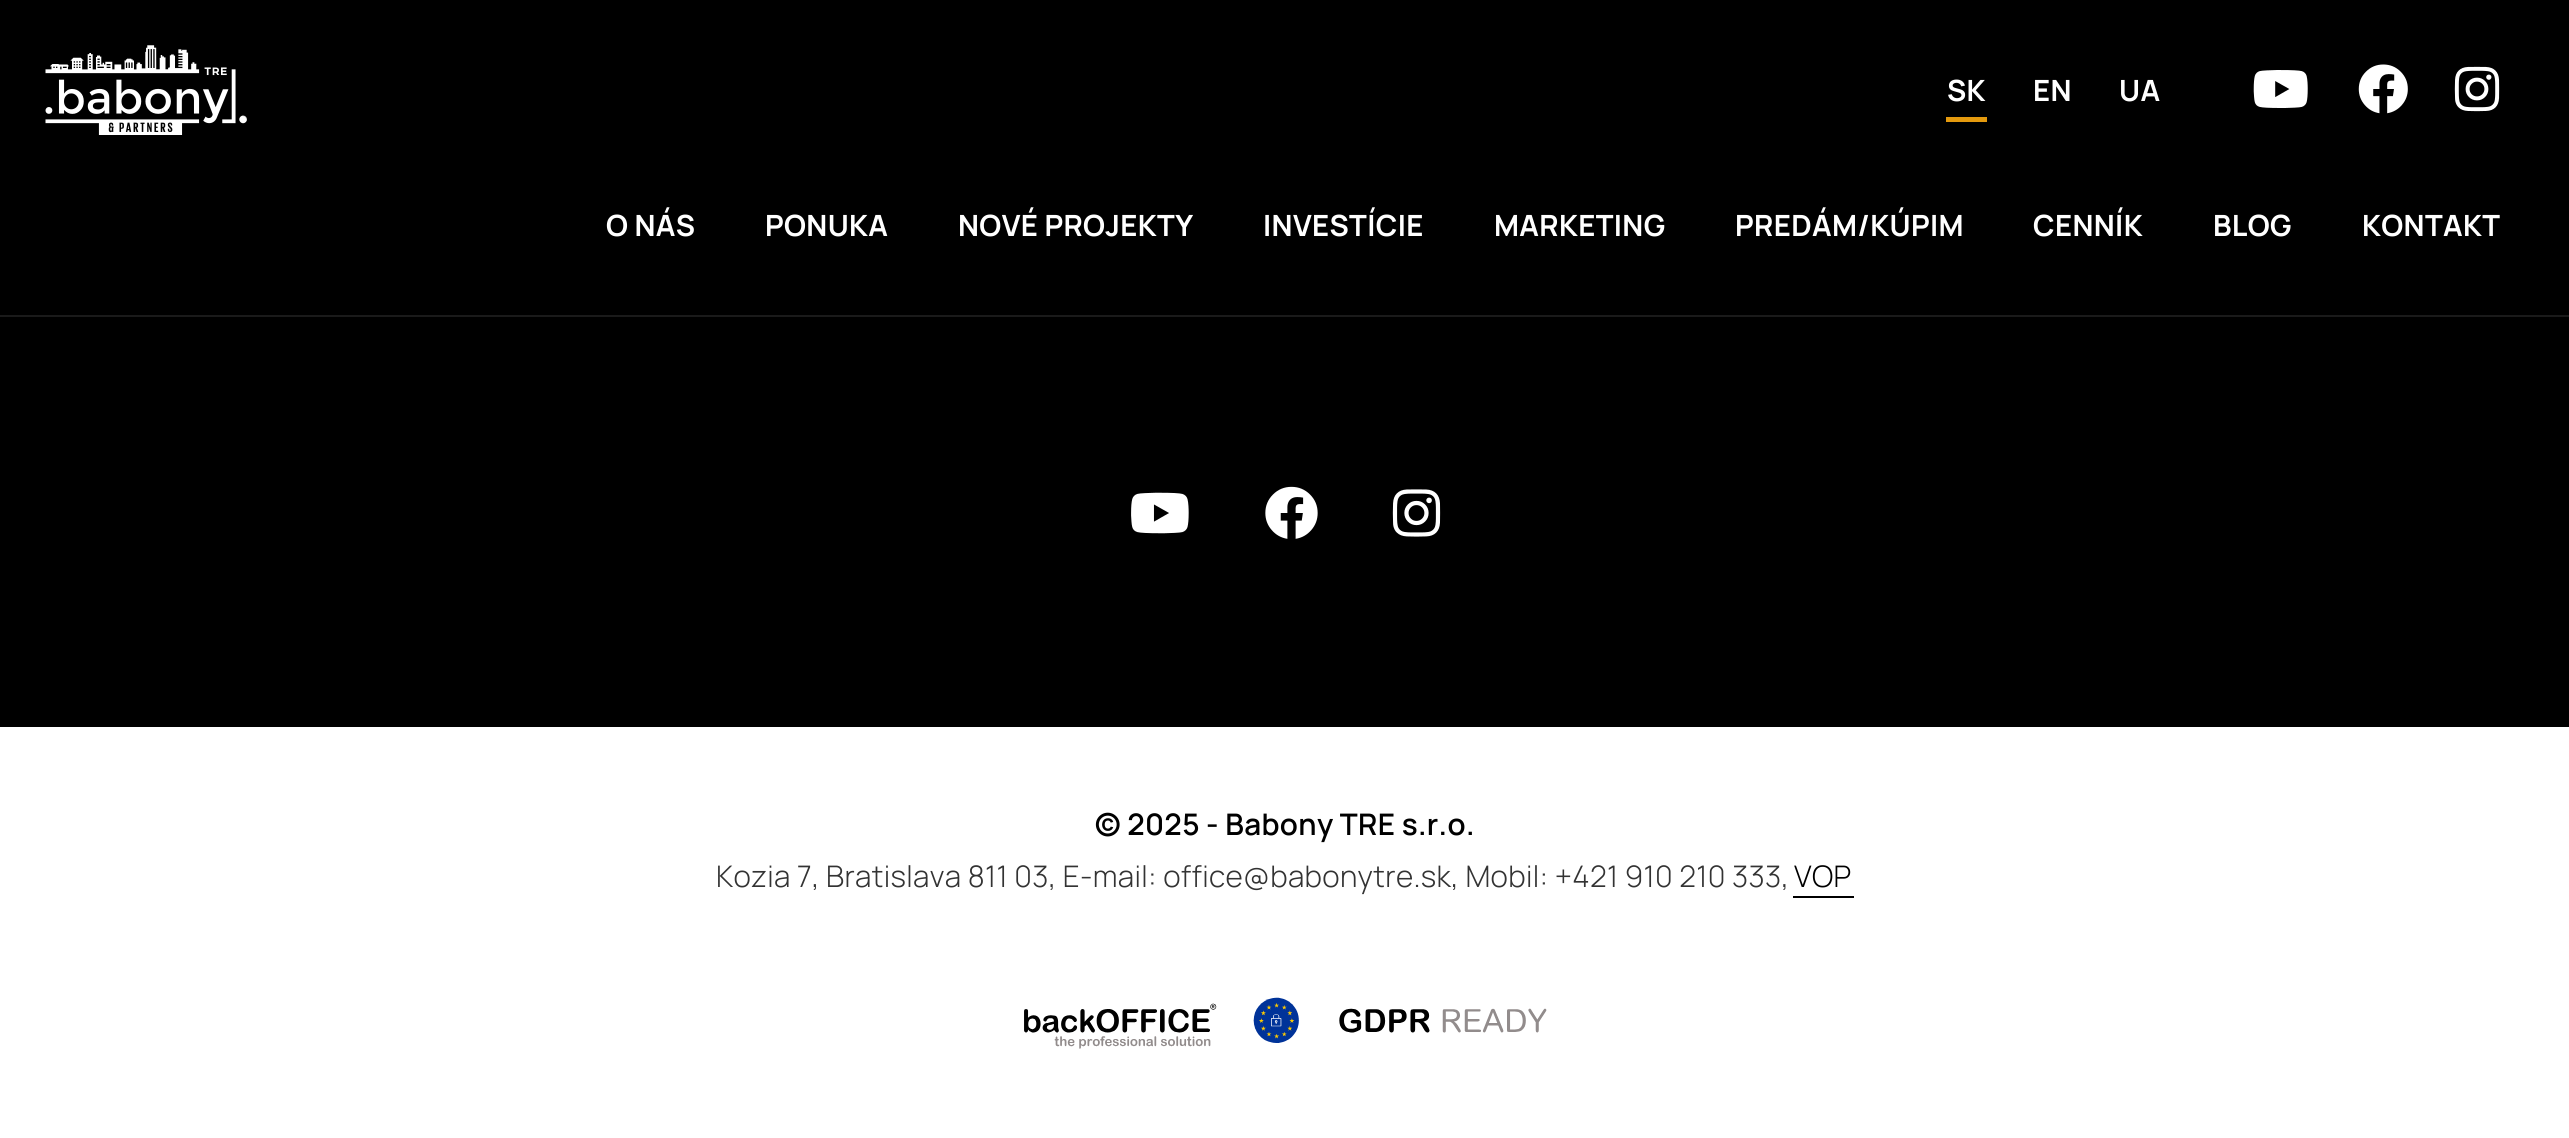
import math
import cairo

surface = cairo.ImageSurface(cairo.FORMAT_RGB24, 2569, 1138)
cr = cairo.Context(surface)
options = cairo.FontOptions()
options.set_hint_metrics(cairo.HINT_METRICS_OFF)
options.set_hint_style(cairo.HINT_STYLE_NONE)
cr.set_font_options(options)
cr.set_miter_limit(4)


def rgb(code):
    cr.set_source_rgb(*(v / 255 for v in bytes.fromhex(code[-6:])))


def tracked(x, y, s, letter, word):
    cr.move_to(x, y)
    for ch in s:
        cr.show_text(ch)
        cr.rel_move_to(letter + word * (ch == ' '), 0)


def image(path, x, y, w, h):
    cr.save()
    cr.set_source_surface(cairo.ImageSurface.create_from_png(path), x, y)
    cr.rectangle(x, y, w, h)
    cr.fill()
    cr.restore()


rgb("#ffffff")
cr.paint()
rgb("#000000")
cr.rectangle(0, 0, 2569, 315)
cr.fill()
rgb("#1a1a1a")
cr.rectangle(0, 315, 2569, 2)
cr.fill()
image("img/1.png", 45, 45, 202, 90)
rgb("#e49a0e")
cr.rectangle(1946, 117, 41, 5)
cr.fill()
image("img/2.png", 2253, 70, 55, 38)
image("img/3.png", 2358, 64, 50, 50)
image("img/4.png", 2454, 66, 46, 46)
rgb("#000000")
cr.rectangle(0, 317, 2569, 410)
cr.fill()
image("img/5.png", 1131, 492, 58, 42)
image("img/6.png", 1265, 486, 53, 53)
image("img/7.png", 1392, 489, 49, 48)
cr.rectangle(1793, 896, 61, 2)
cr.fill()
image("img/8.png", 1024, 997, 523, 52)
cr.select_font_face("Manrope", cairo.FONT_SLANT_NORMAL, cairo.FONT_WEIGHT_BOLD)
cr.set_font_size(29.25)
rgb("#ffffff")
for x, y, s in [
    (1947, 101, "SK"),
    (2033, 101, "EN"),
    (2119, 101, "UA"),
    (606, 236, "O NÁS"),
    (765, 236, "PONUKA"),
    (958, 236, "NOVÉ PROJEKTY"),
    (1263, 236, "INVESTÍCIE"),
    (1494, 236, "MARKETING"),
    (1735, 236, "PREDÁM/KÚPIM"),
    (2033, 236, "CENNÍK"),
    (2213, 236, "BLOG"),
    (2362, 236, "KONTAKT"),
]:
    tracked(x, y, s, 0.35, 0)
cr.select_font_face("Manrope SemiBold")
cr.set_font_size(29.7)
rgb("#000000")
tracked(1095, 835, "© 2025 - Babony TRE s.r.o.", 0.35, 0)
cr.select_font_face("Manrope Light")
rgb("#333333")
tracked(716, 887, "Kozia 7, Bratislava 811 03, E-mail: office@babonytre.sk, Mobil: +421 910 210 333,", 0.35, 0)
rgb("#000000")
tracked(1794, 887, "VOP", 0.35, 0)
surface.write_to_png("page.png")
